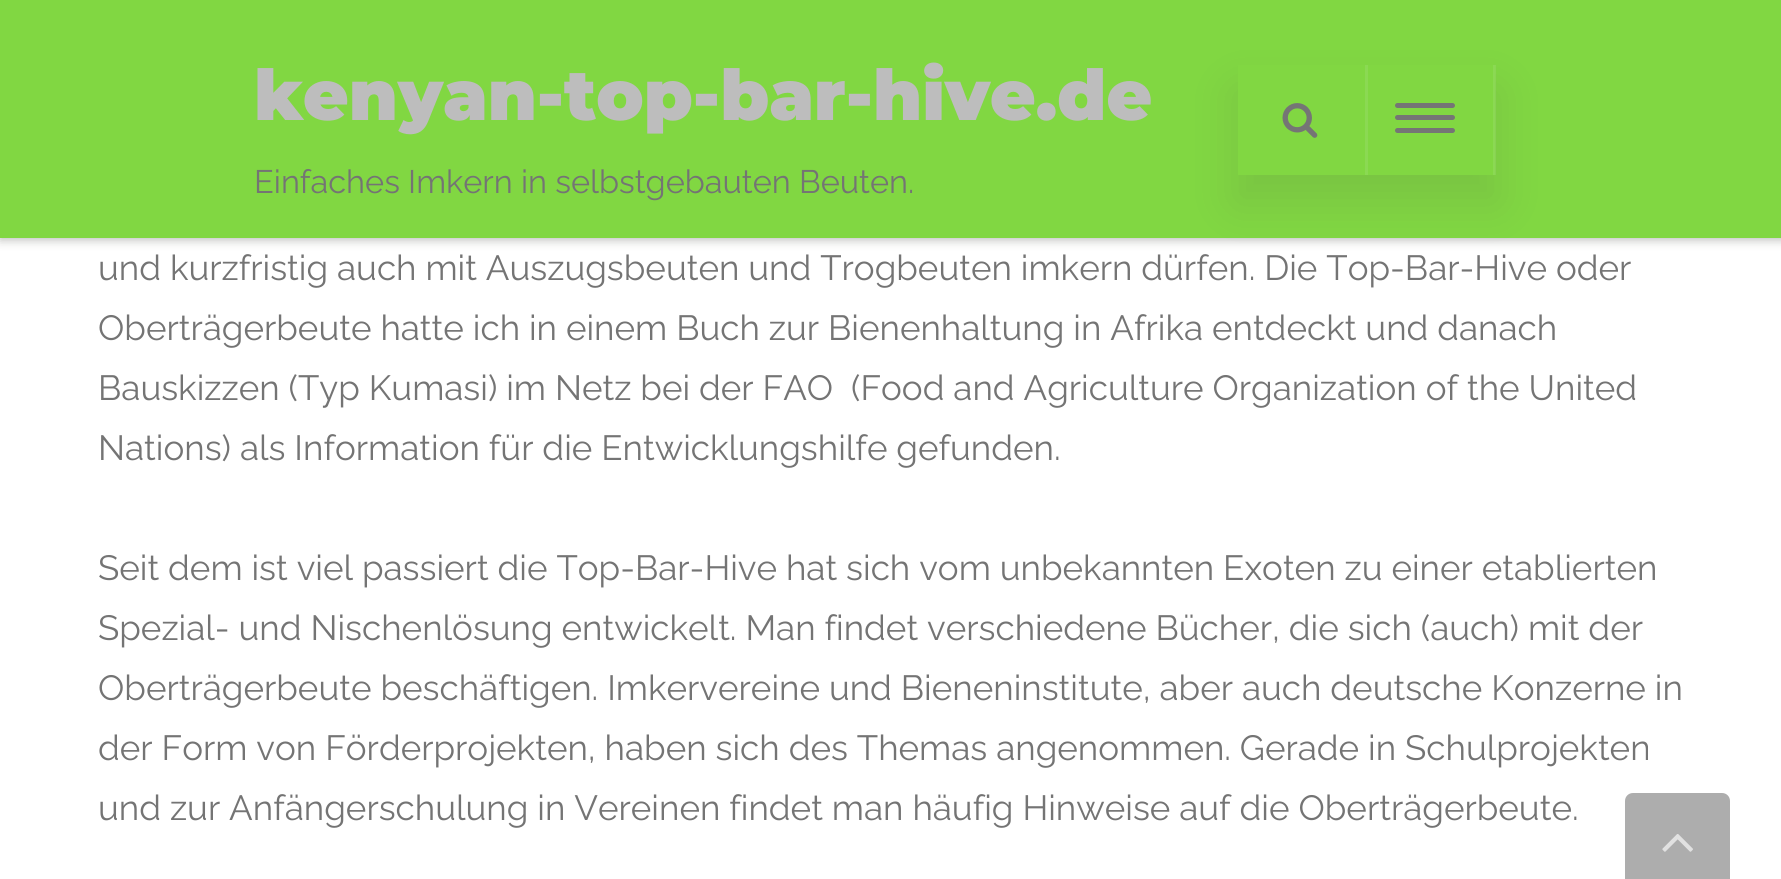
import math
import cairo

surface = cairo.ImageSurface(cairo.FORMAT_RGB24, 1781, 879)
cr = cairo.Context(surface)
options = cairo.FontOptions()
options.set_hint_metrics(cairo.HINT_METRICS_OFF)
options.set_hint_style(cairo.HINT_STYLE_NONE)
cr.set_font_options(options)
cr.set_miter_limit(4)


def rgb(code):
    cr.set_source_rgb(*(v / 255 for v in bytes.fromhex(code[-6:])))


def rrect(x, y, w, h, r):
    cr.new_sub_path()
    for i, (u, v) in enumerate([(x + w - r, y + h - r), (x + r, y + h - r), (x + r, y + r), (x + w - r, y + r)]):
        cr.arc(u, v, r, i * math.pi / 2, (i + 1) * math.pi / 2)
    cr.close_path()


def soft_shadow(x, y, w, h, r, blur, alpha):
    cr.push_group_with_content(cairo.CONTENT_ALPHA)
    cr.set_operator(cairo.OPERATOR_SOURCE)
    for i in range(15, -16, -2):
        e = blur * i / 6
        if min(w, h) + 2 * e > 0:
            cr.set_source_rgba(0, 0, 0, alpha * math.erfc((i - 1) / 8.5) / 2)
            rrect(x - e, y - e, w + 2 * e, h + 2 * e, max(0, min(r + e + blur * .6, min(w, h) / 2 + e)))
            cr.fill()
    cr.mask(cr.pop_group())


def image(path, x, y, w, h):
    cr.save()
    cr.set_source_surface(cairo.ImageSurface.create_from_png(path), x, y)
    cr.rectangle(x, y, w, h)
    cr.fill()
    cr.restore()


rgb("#ffffff")
cr.paint()
rgb("#81d742")
cr.rectangle(0, 0, 1781, 238)
cr.fill()
cr.save()
cr.set_fill_rule(cairo.FILL_RULE_EVEN_ODD)
cr.new_path()
cr.move_to(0, 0)
cr.line_to(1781, 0)
cr.line_to(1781, 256)
cr.line_to(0, 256)
cr.close_path()
cr.move_to(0, 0)
cr.line_to(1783, 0)
cr.line_to(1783, 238)
cr.line_to(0, 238)
cr.close_path()
cr.clip()
rgb("#a7a9a4")
soft_shadow(0, 3, 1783, 237, 0, 5, 0.75)
cr.restore()
cr.save()
cr.set_fill_rule(cairo.FILL_RULE_EVEN_ODD)
cr.new_path()
cr.move_to(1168, 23)
cr.line_to(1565, 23)
cr.line_to(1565, 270)
cr.line_to(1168, 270)
cr.close_path()
cr.move_to(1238, 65)
cr.line_to(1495, 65)
cr.line_to(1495, 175)
cr.line_to(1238, 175)
cr.close_path()
cr.clip()
rgb("#404040")
soft_shadow(1235, 90, 263, 113, 0, 22, 0.13)
cr.restore()
rgb("#8bd953")
cr.rectangle(1365, 65, 3, 110)
cr.fill()
image("img/1.png", 1282, 103, 36, 35)
cr.set_source_rgba(0.906, 0.906, 0.906, 0.1)
cr.rectangle(1493, 65, 3, 110)
cr.fill()
rgb("#757575")
rrect(1395, 103, 60, 5, 2.5)
cr.fill()
rrect(1395, 115, 60, 5, 2.5)
cr.fill()
rrect(1395, 128, 60, 5, 2.5)
cr.fill()
rgb("#adadad")
cr.new_path()
cr.move_to(1633, 793)
cr.line_to(1722, 793)
cr.curve_to(1726.5, 793, 1730, 796.5, 1730, 801)
cr.line_to(1730, 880)
cr.line_to(1625, 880)
cr.line_to(1625, 801)
cr.curve_to(1625, 796.5, 1628.5, 793, 1633, 793)
cr.close_path()
cr.fill()
image("img/2.png", 1662, 834, 31, 18)
cr.select_font_face("Montserrat Black")
cr.set_font_size(70)
rgb("#bdbdbd")
cr.move_to(254, 120)
cr.show_text("kenyan-top-bar-hive.de")
cr.select_font_face("Raleway")
cr.set_font_size(32.5)
rgb("#747474")
cr.move_to(254, 193)
cr.show_text("Einfaches Imkern in selbstgebauten Beuten.")
cr.set_font_size(35)
for x, y, s in [
    (98, 280, "und kurzfristig auch mit Auszugsbeuten und Trogbeuten imkern dürfen. Die Top-Bar-Hive oder"),
    (98, 340, "Oberträgerbeute hatte ich in einem Buch zur Bienenhaltung in Afrika entdeckt und danach"),
    (98, 400, "Bauskizzen (Typ Kumasi) im Netz bei der FAO  (Food and Agriculture Organization of the United"),
    (98, 460, "Nations) als Information für die Entwicklungshilfe gefunden."),
    (98, 580, "Seit dem ist viel passiert die Top-Bar-Hive hat sich vom unbekannten Exoten zu einer etablierten"),
    (98, 640, "Spezial- und Nischenlösung entwickelt. Man findet verschiedene Bücher, die sich (auch) mit der"),
    (98, 700, "Oberträgerbeute beschäftigen. Imkervereine und Bieneninstitute, aber auch deutsche Konzerne in"),
    (98, 760, "der Form von Förderprojekten, haben sich des Themas angenommen. Gerade in Schulprojekten"),
    (98, 820, "und zur Anfängerschulung in Vereinen findet man häufig Hinweise auf die Oberträgerbeute."),
]:
    cr.move_to(x, y)
    cr.show_text(s)
surface.write_to_png("page.png")
